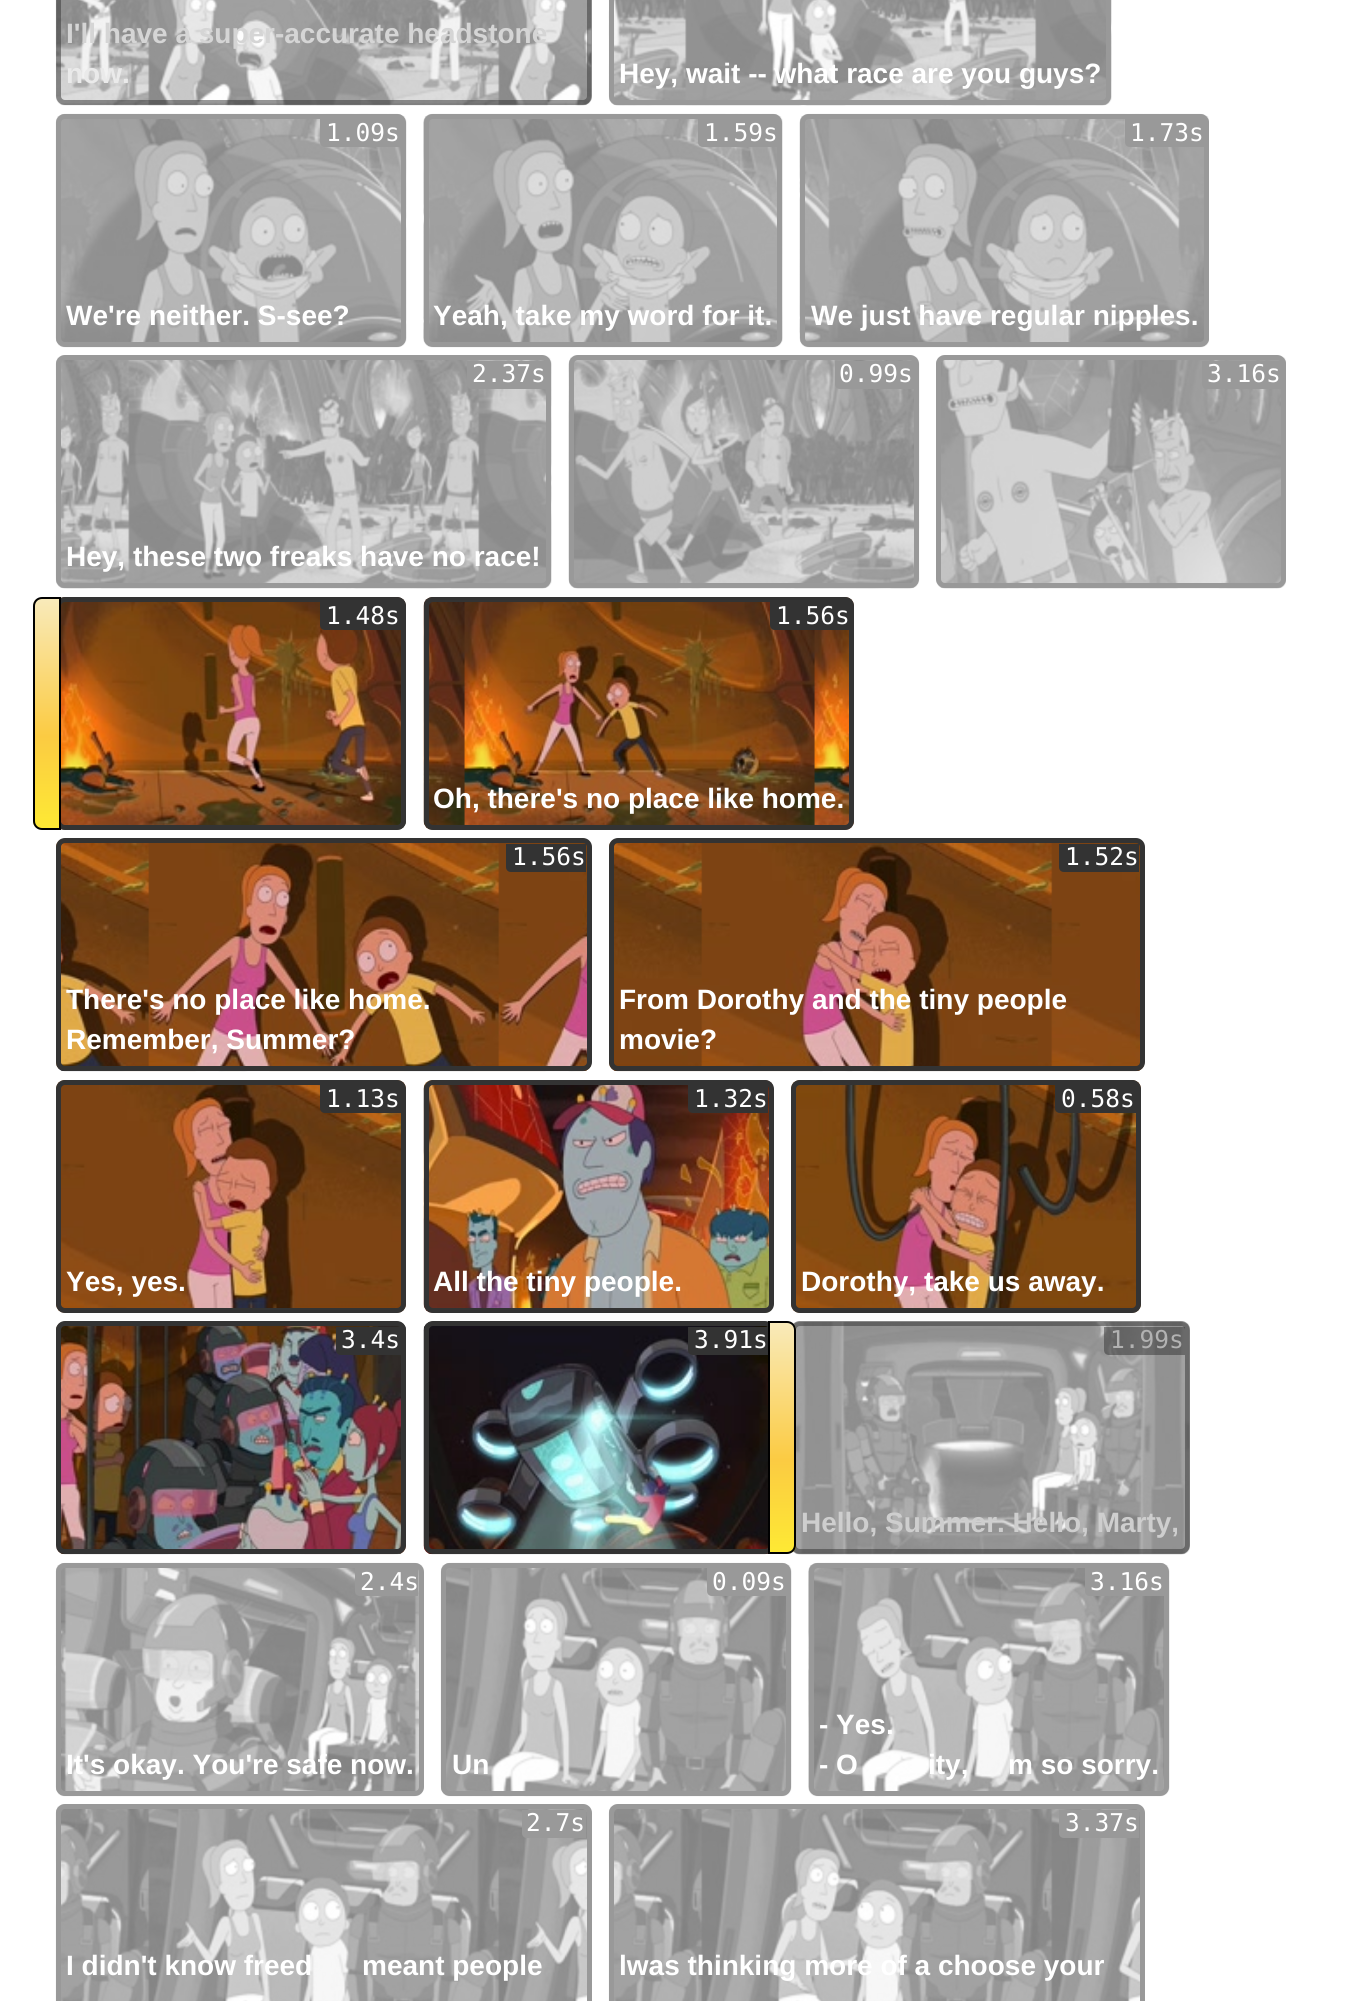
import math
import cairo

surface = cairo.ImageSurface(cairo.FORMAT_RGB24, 1370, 2001)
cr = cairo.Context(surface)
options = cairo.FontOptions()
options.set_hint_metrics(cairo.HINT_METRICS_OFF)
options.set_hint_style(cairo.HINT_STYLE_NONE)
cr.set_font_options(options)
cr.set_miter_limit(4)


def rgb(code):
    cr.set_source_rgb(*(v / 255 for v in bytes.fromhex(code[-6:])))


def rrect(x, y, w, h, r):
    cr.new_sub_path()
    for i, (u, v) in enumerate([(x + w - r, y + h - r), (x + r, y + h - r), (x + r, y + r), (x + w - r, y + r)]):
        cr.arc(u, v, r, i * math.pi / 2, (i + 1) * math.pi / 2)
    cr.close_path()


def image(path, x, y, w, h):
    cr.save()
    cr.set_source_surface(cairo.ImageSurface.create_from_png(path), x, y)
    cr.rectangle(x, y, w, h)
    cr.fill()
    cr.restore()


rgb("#ffffff")
cr.paint()
image("img/1.png", 55, 0, 537, 106)
rrect(58.5, -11.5, 531, 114, 6.5)
cr.set_source_rgba(0.2, 0.2, 0.2, 0.5)
cr.set_line_width(5)
cr.stroke()
image("img/2.png", 608, 0, 504, 106)
rrect(611.5, -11.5, 497, 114, 6.5)
rgb("#999999")
cr.stroke()
image("img/3.png", 55, 113, 352, 235)
rrect(58.5, 116.5, 345, 228, 6.5)
cr.stroke()
cr.new_path()
cr.move_to(320, 119)
cr.line_to(401, 119)
cr.line_to(401, 147)
cr.line_to(325, 147)
cr.curve_to(322, 147, 320, 145, 320, 142)
cr.close_path()
cr.fill()
image("img/4.png", 423, 113, 360, 235)
rrect(426.5, 116.5, 353, 228, 6.5)
cr.stroke()
cr.new_path()
cr.move_to(698, 119)
cr.line_to(777, 119)
cr.line_to(777, 147)
cr.line_to(703, 147)
cr.curve_to(700, 147, 698, 145, 698, 142)
cr.close_path()
cr.fill()
image("img/5.png", 799, 113, 410, 235)
rrect(802.5, 116.5, 404, 228, 6.5)
cr.stroke()
cr.new_path()
cr.move_to(1125, 119)
cr.line_to(1204, 119)
cr.line_to(1204, 147)
cr.line_to(1130, 147)
cr.curve_to(1127, 147, 1125, 145, 1125, 142)
cr.close_path()
cr.fill()
image("img/6.png", 55, 355, 497, 234)
rrect(58.5, 357.5, 490, 228, 6.5)
cr.stroke()
cr.new_path()
cr.move_to(467, 361)
cr.line_to(546, 361)
cr.line_to(546, 389)
cr.line_to(472, 389)
cr.curve_to(469, 389, 467, 387, 467, 384)
cr.close_path()
cr.fill()
image("img/7.png", 568, 355, 352, 234)
rrect(571.5, 357.5, 345, 228, 6.5)
cr.stroke()
cr.new_path()
cr.move_to(835, 361)
cr.line_to(914, 361)
cr.line_to(914, 389)
cr.line_to(840, 389)
cr.curve_to(837, 389, 835, 387, 835, 384)
cr.close_path()
cr.fill()
image("img/8.png", 936, 355, 350, 234)
rrect(938.5, 357.5, 345, 228, 6.5)
cr.stroke()
cr.new_path()
cr.move_to(1202, 361)
cr.line_to(1281, 361)
cr.line_to(1281, 389)
cr.line_to(1207, 389)
cr.curve_to(1204, 389, 1202, 387, 1202, 384)
cr.close_path()
cr.fill()
image("img/9.png", 61, 597, 345, 233)
rrect(58.5, 599.5, 345, 228, 6.5)
rgb("#333333")
cr.stroke()
cr.save()
cr.new_path()
cr.move_to(42, 597)
cr.line_to(61, 597)
cr.line_to(61, 830)
cr.line_to(42, 830)
cr.curve_to(37, 830, 33, 826, 33, 821)
cr.line_to(33, 606)
cr.curve_to(33, 601, 37, 597, 42, 597)
cr.close_path()
cr.clip()
gradient = cairo.LinearGradient(47, 599, 47, 828)
gradient.add_color_stop_rgba(0, 0.976, 0.918, 0.729, 1)
gradient.add_color_stop_rgba(0.6, 0.984, 0.796, 0.259, 1)
gradient.add_color_stop_rgba(1, 0.996, 0.914, 0.204, 1)
cr.set_source(gradient)
cr.rectangle(33, 599, 26, 229)
cr.fill()
cr.restore()
cr.new_path()
cr.move_to(42, 598)
cr.line_to(60, 598)
cr.line_to(60, 829)
cr.line_to(42, 829)
cr.curve_to(37.5, 829, 34, 825.5, 34, 821)
cr.line_to(34, 606)
cr.curve_to(34, 601.5, 37.5, 598, 42, 598)
cr.close_path()
rgb("#000000")
cr.set_line_width(2)
cr.stroke()
rgb("#333333")
cr.new_path()
cr.move_to(320, 602)
cr.line_to(401, 602)
cr.line_to(401, 630)
cr.line_to(325, 630)
cr.curve_to(322, 630, 320, 628, 320, 625)
cr.close_path()
cr.fill()
image("img/10.png", 423, 597, 431, 233)
rrect(426.5, 599.5, 425, 228, 6.5)
cr.set_line_width(5)
cr.stroke()
cr.new_path()
cr.move_to(770, 602)
cr.line_to(849, 602)
cr.line_to(849, 630)
cr.line_to(775, 630)
cr.curve_to(772, 630, 770, 628, 770, 625)
cr.close_path()
cr.fill()
image("img/11.png", 56, 838, 536, 234)
rrect(58.5, 840.5, 531, 228, 6.5)
cr.stroke()
cr.new_path()
cr.move_to(506, 844)
cr.line_to(586, 844)
cr.line_to(586, 872)
cr.line_to(511, 872)
cr.curve_to(508, 872, 506, 870, 506, 867)
cr.close_path()
cr.fill()
image("img/12.png", 609, 838, 536, 234)
rrect(611.5, 840.5, 531, 228, 6.5)
cr.stroke()
cr.new_path()
cr.move_to(1059, 844)
cr.line_to(1139, 844)
cr.line_to(1139, 872)
cr.line_to(1064, 872)
cr.curve_to(1061, 872, 1059, 870, 1059, 867)
cr.close_path()
cr.fill()
image("img/13.png", 56, 1080, 350, 233)
rrect(58.5, 1082.5, 345, 228, 6.5)
cr.stroke()
cr.new_path()
cr.move_to(320, 1085)
cr.line_to(401, 1085)
cr.line_to(401, 1113)
cr.line_to(325, 1113)
cr.curve_to(322, 1113, 320, 1111, 320, 1108)
cr.close_path()
cr.fill()
image("img/14.png", 423, 1080, 351, 233)
rrect(426.5, 1082.5, 345, 228, 6.5)
cr.stroke()
cr.new_path()
cr.move_to(688, 1085)
cr.line_to(768, 1085)
cr.line_to(768, 1113)
cr.line_to(693, 1113)
cr.curve_to(690, 1113, 688, 1111, 688, 1108)
cr.close_path()
cr.fill()
image("img/15.png", 791, 1080, 350, 233)
rrect(793.5, 1082.5, 345, 228, 6.5)
cr.stroke()
cr.new_path()
cr.move_to(1055, 1085)
cr.line_to(1136, 1085)
cr.line_to(1136, 1113)
cr.line_to(1060, 1113)
cr.curve_to(1057, 1113, 1055, 1111, 1055, 1108)
cr.close_path()
cr.fill()
image("img/16.png", 56, 1321, 350, 234)
rrect(58.5, 1323.5, 345, 228, 6.5)
cr.stroke()
cr.new_path()
cr.move_to(336, 1327)
cr.line_to(401, 1327)
cr.line_to(401, 1355)
cr.line_to(341, 1355)
cr.curve_to(338, 1355, 336, 1353, 336, 1350)
cr.close_path()
cr.fill()
image("img/17.png", 423, 1321, 345, 234)
rrect(426.5, 1323.5, 345, 228, 6.5)
cr.stroke()
cr.new_path()
cr.move_to(688, 1327)
cr.line_to(768, 1327)
cr.line_to(768, 1355)
cr.line_to(693, 1355)
cr.curve_to(690, 1355, 688, 1353, 688, 1350)
cr.close_path()
cr.fill()
image("img/18.png", 793, 1321, 397, 234)
rrect(793.5, 1323.5, 394, 228, 6.5)
cr.set_source_rgba(0.2, 0.2, 0.2, 0.5)
cr.stroke()
cr.save()
cr.new_path()
cr.move_to(768, 1321)
cr.line_to(787, 1321)
cr.curve_to(792, 1321, 796, 1325, 796, 1330)
cr.line_to(796, 1545)
cr.curve_to(796, 1550, 792, 1554, 787, 1554)
cr.line_to(768, 1554)
cr.close_path()
cr.clip()
gradient = cairo.LinearGradient(782, 1323, 782, 1552)
gradient.add_color_stop_rgba(0, 0.976, 0.918, 0.729, 1)
gradient.add_color_stop_rgba(0.6, 0.984, 0.796, 0.259, 1)
gradient.add_color_stop_rgba(1, 0.996, 0.914, 0.204, 1)
cr.set_source(gradient)
cr.rectangle(770, 1323, 26, 229)
cr.fill()
cr.restore()
cr.new_path()
cr.move_to(769, 1322)
cr.line_to(787, 1322)
cr.curve_to(791.5, 1322, 795, 1325.5, 795, 1330)
cr.line_to(795, 1545)
cr.curve_to(795, 1549.5, 791.5, 1553, 787, 1553)
cr.line_to(769, 1553)
cr.close_path()
rgb("#000000")
cr.set_line_width(2)
cr.stroke()
cr.set_source_rgba(0.2, 0.2, 0.2, 0.5)
cr.new_path()
cr.move_to(1104, 1327)
cr.line_to(1185, 1327)
cr.line_to(1185, 1355)
cr.line_to(1109, 1355)
cr.curve_to(1106, 1355, 1104, 1353, 1104, 1350)
cr.close_path()
cr.fill()
image("img/19.png", 55, 1562, 369, 235)
rrect(58.5, 1565.5, 363, 228, 6.5)
rgb("#999999")
cr.set_line_width(5)
cr.stroke()
cr.new_path()
cr.move_to(355, 1568)
cr.line_to(418, 1568)
cr.line_to(418, 1596)
cr.line_to(360, 1596)
cr.curve_to(357, 1596, 355, 1594, 355, 1591)
cr.close_path()
cr.fill()
image("img/20.png", 440, 1562, 352, 235)
rrect(443.5, 1565.5, 345, 228, 6.5)
cr.stroke()
cr.new_path()
cr.move_to(707, 1568)
cr.line_to(786, 1568)
cr.line_to(786, 1596)
cr.line_to(712, 1596)
cr.curve_to(709, 1596, 707, 1594, 707, 1591)
cr.close_path()
cr.fill()
image("img/21.png", 808, 1562, 362, 235)
rrect(811.5, 1565.5, 355, 228, 6.5)
cr.stroke()
cr.new_path()
cr.move_to(1085, 1568)
cr.line_to(1164, 1568)
cr.line_to(1164, 1596)
cr.line_to(1090, 1596)
cr.curve_to(1087, 1596, 1085, 1594, 1085, 1591)
cr.close_path()
cr.fill()
image("img/22.png", 55, 1804, 537, 197)
rrect(58.5, 1806.5, 531, 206, 6.5)
cr.stroke()
cr.new_path()
cr.move_to(522, 1810)
cr.line_to(586, 1810)
cr.line_to(586, 1838)
cr.line_to(527, 1838)
cr.curve_to(524, 1838, 522, 1836, 522, 1833)
cr.close_path()
cr.fill()
image("img/23.png", 608, 1804, 537, 197)
rrect(611.5, 1806.5, 531, 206, 6.5)
cr.stroke()
cr.new_path()
cr.move_to(1059, 1810)
cr.line_to(1139, 1810)
cr.line_to(1139, 1838)
cr.line_to(1064, 1838)
cr.curve_to(1061, 1838, 1059, 1836, 1059, 1833)
cr.close_path()
cr.fill()
cr.select_font_face("Liberation Sans", cairo.FONT_SLANT_NORMAL, cairo.FONT_WEIGHT_BOLD)
cr.set_font_size(28)
rgb("#d5d5d5")
cr.move_to(66, 43)
cr.show_text("I'll have a super-accurate headstone")
rgb("#eaeaea")
cr.move_to(66, 83)
cr.show_text("now.")
rgb("#ffffff")
cr.move_to(619, 83)
cr.show_text("Hey, wait -- what race are you guys?")
cr.select_font_face("DejaVu Sans Mono")
cr.set_font_size(24.5)
cr.move_to(326, 141)
cr.show_text("1.09s")
cr.select_font_face("Liberation Sans", cairo.FONT_SLANT_NORMAL, cairo.FONT_WEIGHT_BOLD)
cr.set_font_size(28)
cr.move_to(66, 325)
cr.show_text("We're neither. S-see?")
cr.select_font_face("DejaVu Sans Mono")
cr.set_font_size(24.5)
cr.move_to(704, 141)
cr.show_text("1.59s")
cr.select_font_face("Liberation Sans", cairo.FONT_SLANT_NORMAL, cairo.FONT_WEIGHT_BOLD)
cr.set_font_size(28)
cr.move_to(433, 325)
cr.show_text("Yeah, take my word for it.")
cr.select_font_face("DejaVu Sans Mono")
cr.set_font_size(24.5)
cr.move_to(1130, 141)
cr.show_text("1.73s")
cr.select_font_face("Liberation Sans", cairo.FONT_SLANT_NORMAL, cairo.FONT_WEIGHT_BOLD)
cr.set_font_size(28)
cr.move_to(811, 325)
cr.show_text("We just have regular nipples.")
cr.select_font_face("DejaVu Sans Mono")
cr.set_font_size(24.5)
cr.move_to(472, 382)
cr.show_text("2.37s")
cr.select_font_face("Liberation Sans", cairo.FONT_SLANT_NORMAL, cairo.FONT_WEIGHT_BOLD)
cr.set_font_size(28)
cr.move_to(66, 566)
cr.show_text("Hey, these two freaks have no race!")
cr.select_font_face("DejaVu Sans Mono")
cr.set_font_size(24.5)
for x, y, s in [
    (839, 382, "0.99s"),
    (1207, 382, "3.16s"),
    (326, 624, "1.48s"),
    (776, 624, "1.56s"),
]:
    cr.move_to(x, y)
    cr.show_text(s)
cr.select_font_face("Liberation Sans", cairo.FONT_SLANT_NORMAL, cairo.FONT_WEIGHT_BOLD)
cr.set_font_size(28)
cr.move_to(433, 808)
cr.show_text("Oh, there's no place like home.")
cr.select_font_face("DejaVu Sans Mono")
cr.set_font_size(24.5)
cr.move_to(512, 865)
cr.show_text("1.56s")
cr.select_font_face("Liberation Sans", cairo.FONT_SLANT_NORMAL, cairo.FONT_WEIGHT_BOLD)
cr.set_font_size(28)
cr.move_to(66, 1009)
cr.show_text("There's no place like home.")
cr.move_to(66, 1049)
cr.show_text("Remember, Summer?")
cr.select_font_face("DejaVu Sans Mono")
cr.set_font_size(24.5)
cr.move_to(1065, 865)
cr.show_text("1.52s")
cr.select_font_face("Liberation Sans", cairo.FONT_SLANT_NORMAL, cairo.FONT_WEIGHT_BOLD)
cr.set_font_size(28)
cr.move_to(619, 1009)
cr.show_text("From Dorothy and the tiny people")
cr.move_to(619, 1049)
cr.show_text("movie?")
cr.select_font_face("DejaVu Sans Mono")
cr.set_font_size(24.5)
cr.move_to(326, 1107)
cr.show_text("1.13s")
cr.select_font_face("Liberation Sans", cairo.FONT_SLANT_NORMAL, cairo.FONT_WEIGHT_BOLD)
cr.set_font_size(28)
cr.move_to(66, 1291)
cr.show_text("Yes, yes.")
cr.select_font_face("DejaVu Sans Mono")
cr.set_font_size(24.5)
cr.move_to(694, 1107)
cr.show_text("1.32s")
cr.select_font_face("Liberation Sans", cairo.FONT_SLANT_NORMAL, cairo.FONT_WEIGHT_BOLD)
cr.set_font_size(28)
cr.move_to(433, 1291)
cr.show_text("All the tiny people.")
cr.select_font_face("DejaVu Sans Mono")
cr.set_font_size(24.5)
cr.move_to(1061, 1107)
cr.show_text("0.58s")
cr.select_font_face("Liberation Sans", cairo.FONT_SLANT_NORMAL, cairo.FONT_WEIGHT_BOLD)
cr.set_font_size(28)
cr.move_to(801, 1291)
cr.show_text("Dorothy, take us away.")
cr.select_font_face("DejaVu Sans Mono")
cr.set_font_size(24.5)
cr.move_to(341, 1348)
cr.show_text("3.4s")
cr.move_to(694, 1348)
cr.show_text("3.91s")
rgb("#b2b2b2")
cr.move_to(1110, 1348)
cr.show_text("1.99s")
cr.select_font_face("Liberation Sans", cairo.FONT_SLANT_NORMAL, cairo.FONT_WEIGHT_BOLD)
cr.set_font_size(28)
rgb("#cecece")
cr.move_to(801, 1532)
cr.show_text("Hello, Summer. Hello, Marty,")
cr.select_font_face("DejaVu Sans Mono")
cr.set_font_size(24.5)
rgb("#ffffff")
cr.move_to(360, 1590)
cr.show_text("2.4s")
cr.select_font_face("Liberation Sans", cairo.FONT_SLANT_NORMAL, cairo.FONT_WEIGHT_BOLD)
cr.set_font_size(28)
cr.move_to(66, 1774)
cr.show_text("It's okay. You're safe now.")
cr.select_font_face("DejaVu Sans Mono")
cr.set_font_size(24.5)
cr.move_to(712, 1590)
cr.show_text("0.09s")
cr.select_font_face("Liberation Sans", cairo.FONT_SLANT_NORMAL, cairo.FONT_WEIGHT_BOLD)
cr.set_font_size(28)
cr.move_to(452, 1774)
cr.show_text("Un")
cr.select_font_face("DejaVu Sans Mono")
cr.set_font_size(24.5)
cr.move_to(1090, 1590)
cr.show_text("3.16s")
cr.select_font_face("Liberation Sans", cairo.FONT_SLANT_NORMAL, cairo.FONT_WEIGHT_BOLD)
cr.set_font_size(28)
for x, y, s in [
    (819, 1734, "- Yes."),
    (819, 1774, "- O"),
    (928, 1774, "ity,"),
    (1008, 1774, "m so sorry."),
]:
    cr.move_to(x, y)
    cr.show_text(s)
cr.select_font_face("DejaVu Sans Mono")
cr.set_font_size(24.5)
cr.move_to(526, 1831)
cr.show_text("2.7s")
cr.select_font_face("Liberation Sans", cairo.FONT_SLANT_NORMAL, cairo.FONT_WEIGHT_BOLD)
cr.set_font_size(28)
cr.move_to(66, 1975)
cr.show_text("I didn't know freed")
cr.move_to(362, 1975)
cr.show_text("meant people")
cr.select_font_face("DejaVu Sans Mono")
cr.set_font_size(24.5)
cr.move_to(1065, 1831)
cr.show_text("3.37s")
cr.select_font_face("Liberation Sans", cairo.FONT_SLANT_NORMAL, cairo.FONT_WEIGHT_BOLD)
cr.set_font_size(28)
cr.move_to(619, 1975)
cr.show_text("lwas thinking more of a choose your")
surface.write_to_png("page.png")
